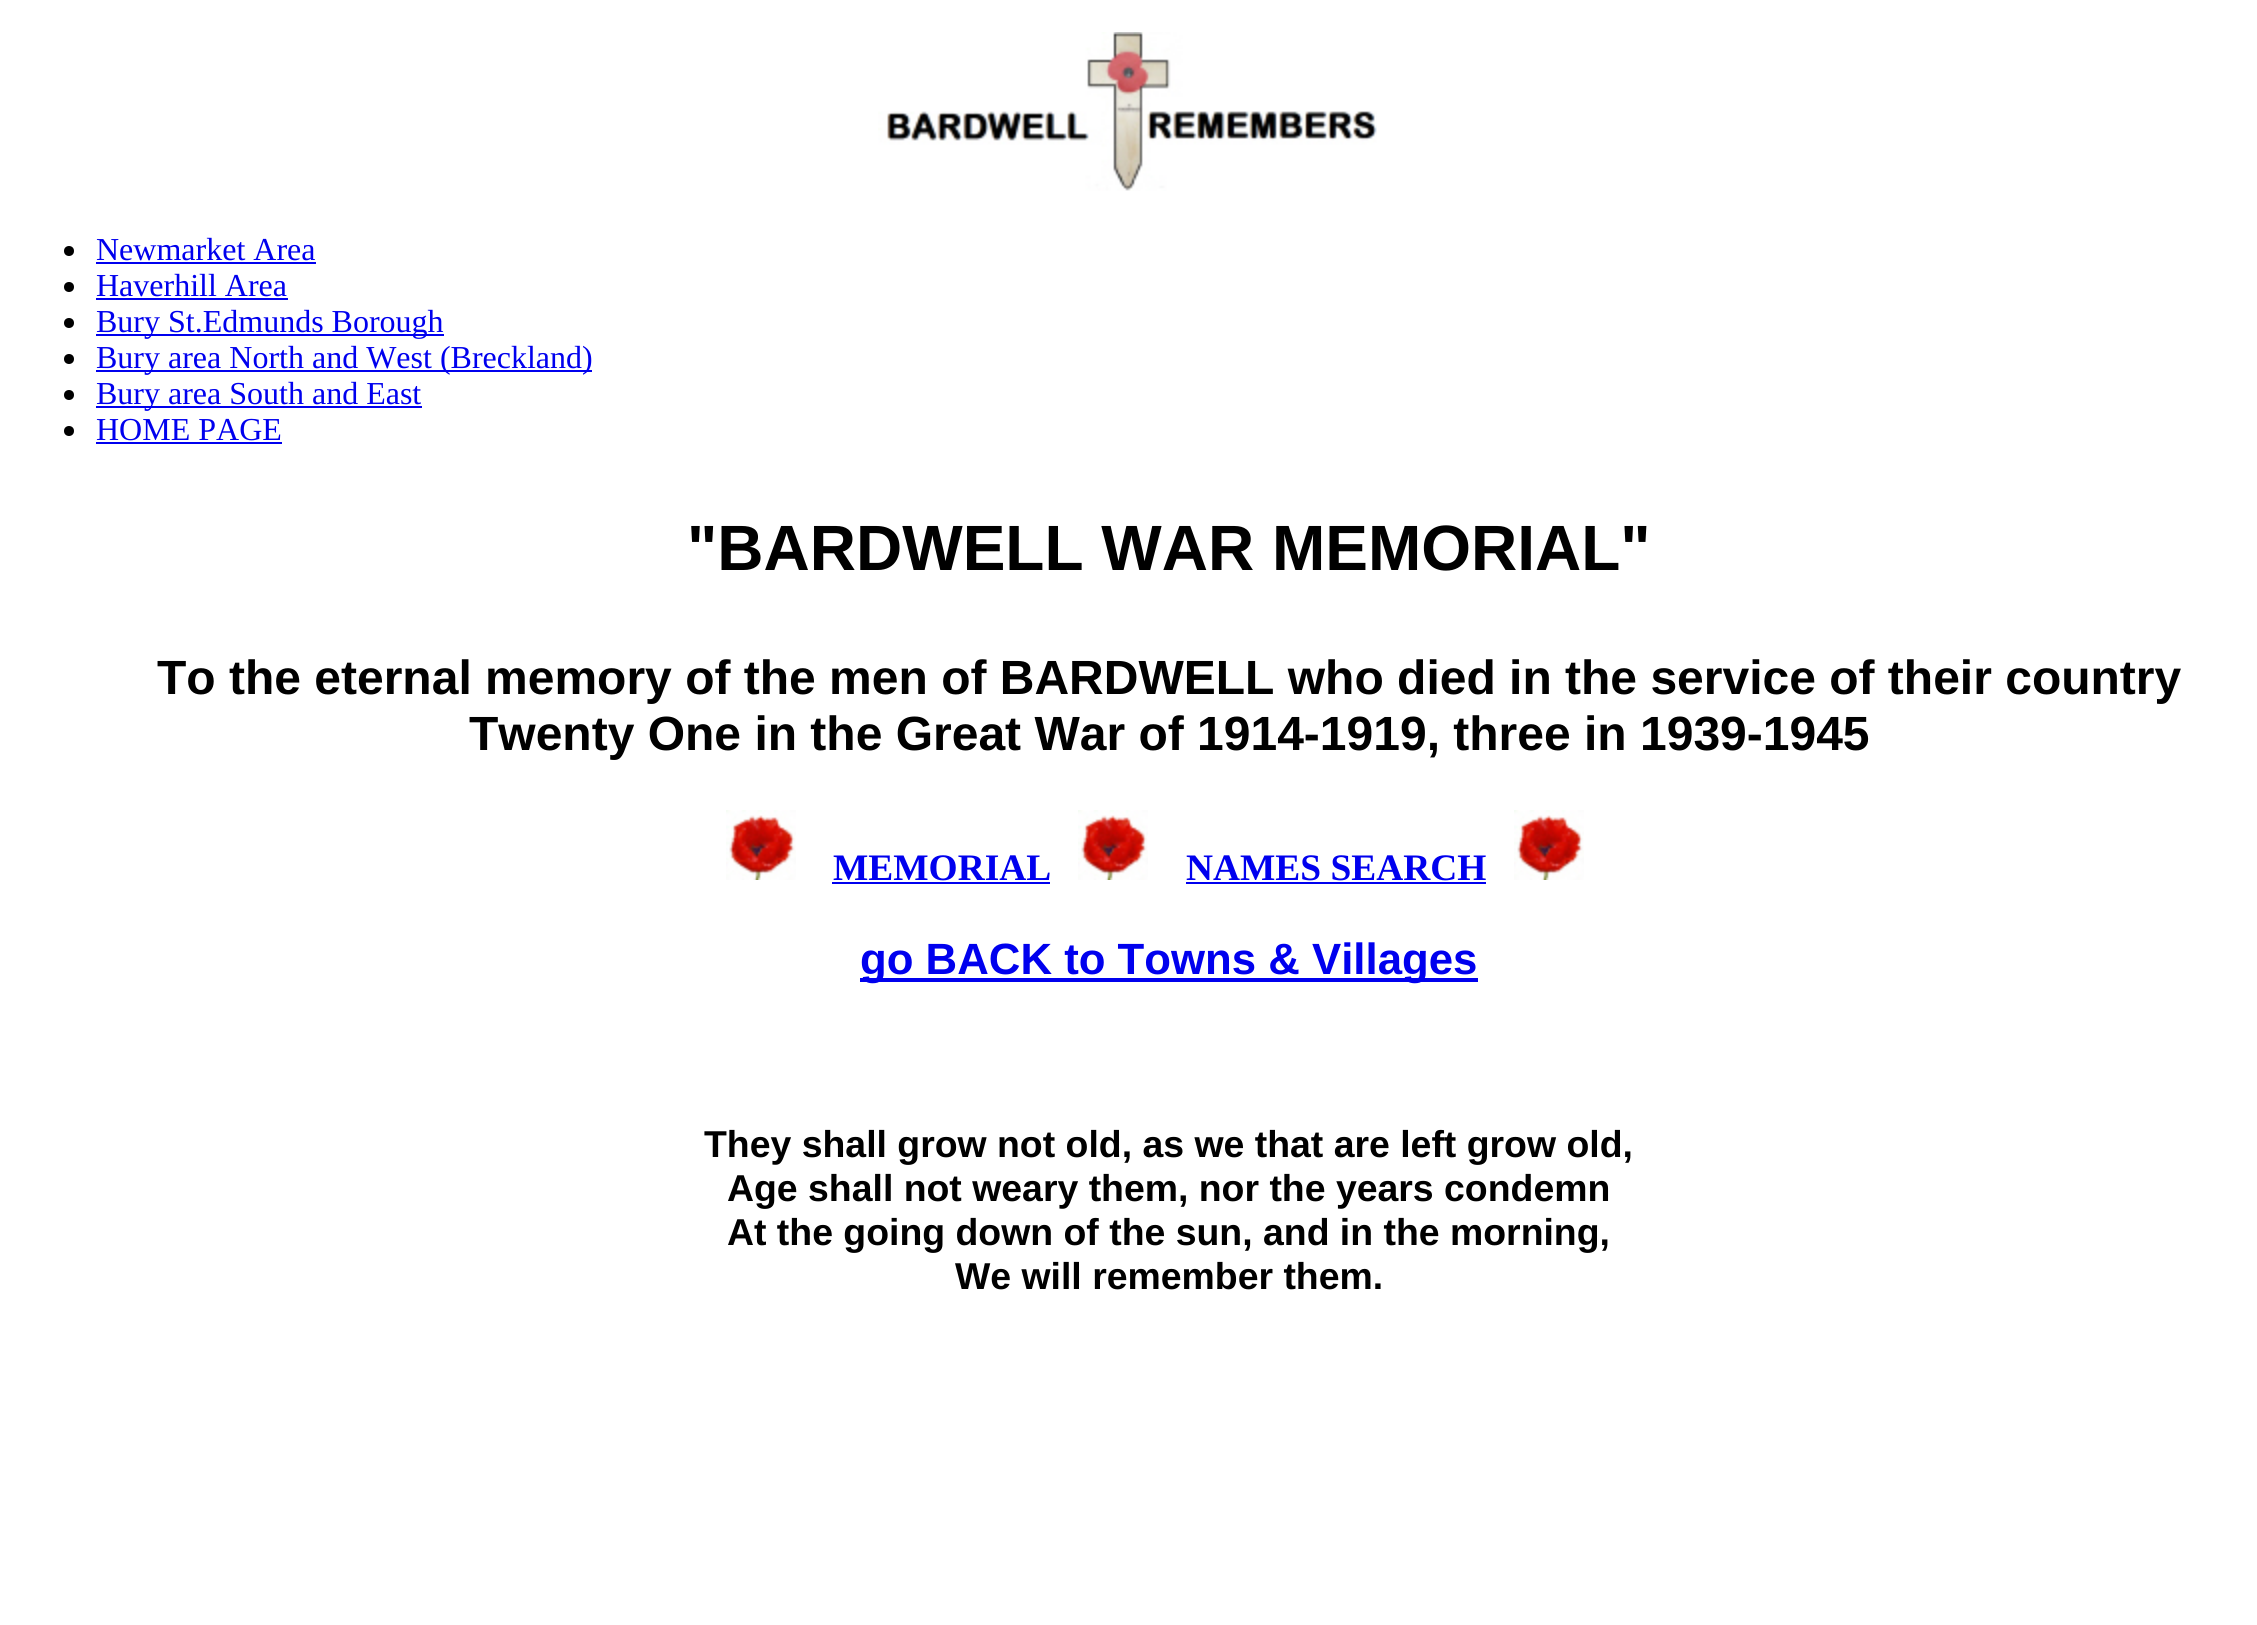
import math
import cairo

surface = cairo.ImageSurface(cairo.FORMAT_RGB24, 2257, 1625)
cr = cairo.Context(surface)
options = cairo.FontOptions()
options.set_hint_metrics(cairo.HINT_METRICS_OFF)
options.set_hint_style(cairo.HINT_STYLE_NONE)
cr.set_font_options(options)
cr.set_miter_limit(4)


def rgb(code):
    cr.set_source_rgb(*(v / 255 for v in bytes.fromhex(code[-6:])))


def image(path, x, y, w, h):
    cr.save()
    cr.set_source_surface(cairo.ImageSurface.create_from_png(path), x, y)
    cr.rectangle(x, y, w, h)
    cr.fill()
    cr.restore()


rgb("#ffffff")
cr.paint()
image("img/1.png", 878, 32, 499, 159)
rgb("#000000")
cr.arc(69, 251, 5, 0, 2 * math.pi)
cr.fill()
rgb("#0000ee")
cr.rectangle(96, 262, 220, 2)
cr.fill()
rgb("#000000")
cr.arc(69, 287, 5, 0, 2 * math.pi)
cr.fill()
rgb("#0000ee")
cr.rectangle(96, 298, 192, 2)
cr.fill()
rgb("#000000")
cr.arc(69, 323, 5, 0, 2 * math.pi)
cr.fill()
rgb("#0000ee")
cr.rectangle(96, 334, 348, 2)
cr.fill()
rgb("#000000")
cr.arc(69, 359, 5, 0, 2 * math.pi)
cr.fill()
rgb("#0000ee")
cr.rectangle(96, 370, 496, 2)
cr.fill()
rgb("#000000")
cr.arc(69, 395, 5, 0, 2 * math.pi)
cr.fill()
rgb("#0000ee")
cr.rectangle(96, 406, 326, 2)
cr.fill()
rgb("#000000")
cr.arc(69, 431, 5, 0, 2 * math.pi)
cr.fill()
rgb("#0000ee")
cr.rectangle(96, 442, 186, 2)
cr.fill()
image("img/2.png", 726, 810, 70, 70)
cr.rectangle(832, 882, 218, 2)
cr.fill()
image("img/2.png", 1078, 810, 70, 70)
cr.rectangle(1186, 882, 300, 2)
cr.fill()
image("img/2.png", 1514, 810, 70, 70)
cr.rectangle(860, 978, 618, 4)
cr.fill()
cr.select_font_face("Liberation Serif")
cr.set_font_size(32)
for x, y, s in [
    (96, 260, "Newmarket Area"),
    (96, 296, "Haverhill Area"),
    (96, 332, "Bury St.Edmunds Borough"),
    (96, 368, "Bury area North and West (Breckland)"),
    (96, 404, "Bury area South and East"),
    (96, 440, "HOME PAGE"),
]:
    cr.move_to(x, y)
    cr.show_text(s)
cr.select_font_face("Liberation Sans", cairo.FONT_SLANT_NORMAL, cairo.FONT_WEIGHT_BOLD)
cr.set_font_size(64)
rgb("#000000")
cr.move_to(687, 570)
cr.show_text("\"BARDWELL WAR MEMORIAL\"")
cr.set_font_size(48)
cr.move_to(157, 694)
cr.show_text("To the eternal memory of the men of BARDWELL who died in the service of their country")
cr.move_to(469, 750)
cr.show_text("Twenty One in the Great War of 1914-1919, three in 1939-1945")
cr.select_font_face("Liberation Serif", cairo.FONT_SLANT_NORMAL, cairo.FONT_WEIGHT_BOLD)
cr.set_font_size(37.4)
rgb("#0000ee")
cr.move_to(833, 880)
cr.show_text("MEMORIAL")
cr.move_to(1186, 880)
cr.show_text("NAMES SEARCH")
cr.select_font_face("Liberation Sans", cairo.FONT_SLANT_NORMAL, cairo.FONT_WEIGHT_BOLD)
cr.set_font_size(43.75)
cr.move_to(860, 974)
cr.show_text("go BACK to Towns & Villages")
cr.set_font_size(37.4)
rgb("#000000")
for x, y, s in [
    (704, 1157, "They shall grow not old, as we that are left grow old,"),
    (727, 1201, "Age shall not weary them, nor the years condemn"),
    (727, 1245, "At the going down of the sun, and in the morning,"),
    (955, 1289, "We will remember them."),
]:
    cr.move_to(x, y)
    cr.show_text(s)
surface.write_to_png("page.png")
